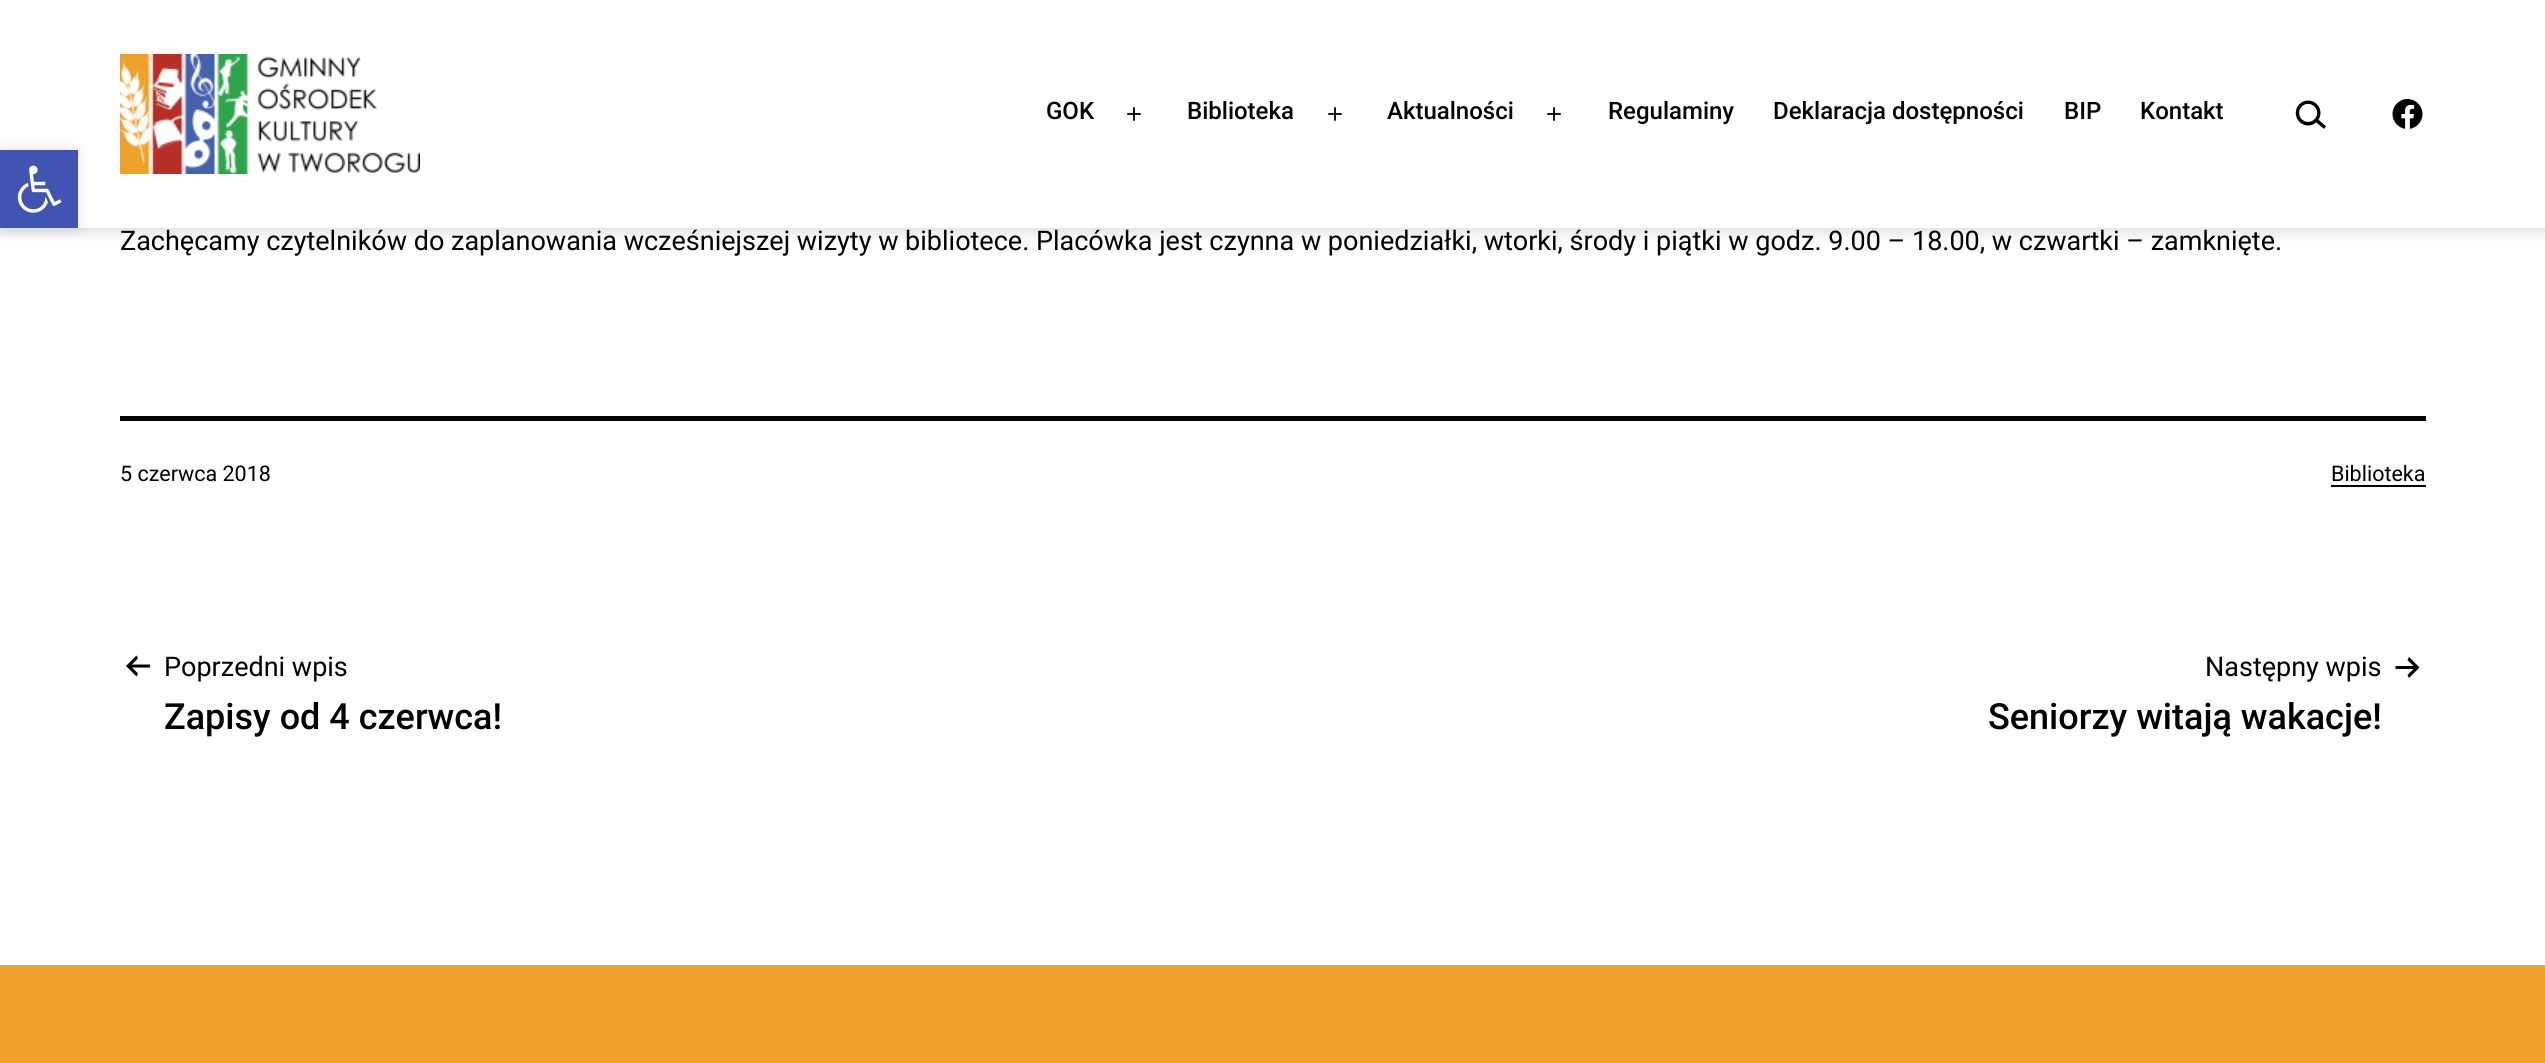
import math
import cairo

surface = cairo.ImageSurface(cairo.FORMAT_RGB24, 2545, 1063)
cr = cairo.Context(surface)
options = cairo.FontOptions()
options.set_hint_metrics(cairo.HINT_METRICS_OFF)
options.set_hint_style(cairo.HINT_STYLE_NONE)
cr.set_font_options(options)
cr.set_miter_limit(4)


def rgb(code):
    cr.set_source_rgb(*(v / 255 for v in bytes.fromhex(code[-6:])))


def rrect(x, y, w, h, r):
    cr.new_sub_path()
    for i, (u, v) in enumerate([(x + w - r, y + h - r), (x + r, y + h - r), (x + r, y + r), (x + w - r, y + r)]):
        cr.arc(u, v, r, i * math.pi / 2, (i + 1) * math.pi / 2)
    cr.close_path()


def soft_shadow(x, y, w, h, r, blur, alpha):
    cr.push_group_with_content(cairo.CONTENT_ALPHA)
    cr.set_operator(cairo.OPERATOR_SOURCE)
    for i in range(15, -16, -2):
        e = blur * i / 6
        if min(w, h) + 2 * e > 0:
            cr.set_source_rgba(0, 0, 0, alpha * math.erfc((i - 1) / 8.5) / 2)
            rrect(x - e, y - e, w + 2 * e, h + 2 * e, max(0, min(r + e + blur * .6, min(w, h) / 2 + e)))
            cr.fill()
    cr.mask(cr.pop_group())


def image(path, x, y, w, h):
    cr.save()
    cr.set_source_surface(cairo.ImageSurface.create_from_png(path), x, y)
    cr.rectangle(x, y, w, h)
    cr.fill()
    cr.restore()


rgb("#ffffff")
cr.paint()
rgb("#000000")
soft_shadow(0, 3, 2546, 228, 0, 7.5, 0.16)
rgb("#ffffff")
cr.rectangle(0, 0, 2545, 228)
cr.fill()
rgb("#000000")
soft_shadow(0, 150, 78, 78, 0, 7.5, 0.1)
rgb("#4054b2")
cr.rectangle(0, 150, 78, 78)
cr.fill()
image("img/1.png", 17, 165, 45, 48)
image("img/2.png", 120, 54, 300, 120)
image("img/3.png", 1127, 107, 14, 14)
image("img/3.png", 1328, 107, 14, 14)
image("img/3.png", 1547, 107, 14, 14)
image("img/4.png", 2295, 100, 31, 29)
image("img/5.png", 2392, 99, 31, 30)
rgb("#000000")
cr.rectangle(120, 416, 2306, 5)
cr.fill()
cr.rectangle(2331, 485, 95, 2)
cr.fill()
image("img/6.png", 126, 655, 24, 22)
image("img/7.png", 2395, 657, 25, 21)
rgb("#eea22a")
cr.rectangle(0, 965, 2545, 98)
cr.fill()
cr.select_font_face("Roboto Medium")
cr.set_font_size(24)
rgb("#000000")
for x, y, s in [
    (1046, 119, "GOK"),
    (1187, 119, "Biblioteka"),
    (1387, 119, "Aktualności"),
    (1608, 119, "Regulaminy"),
    (1773, 119, "Deklaracja dostępności"),
    (2064, 119, "BIP"),
    (2140, 119, "Kontakt"),
]:
    cr.move_to(x, y)
    cr.show_text(s)
cr.select_font_face("Roboto")
cr.set_font_size(27)
cr.move_to(120, 250)
cr.show_text("Zachęcamy czytelników do zaplanowania wcześniejszej wizyty w bibliotece. Placówka jest czynna w poniedziałki, wtorki, środy i piątki w godz. 9.00 – 18.00, w czwartki – zamknięte.")
cr.set_font_size(21.5)
cr.move_to(120, 481)
cr.show_text("5 czerwca 2018")
cr.move_to(2331, 481)
cr.show_text("Biblioteka")
cr.set_font_size(27)
cr.move_to(164, 676)
cr.show_text("Poprzedni wpis")
cr.select_font_face("Roboto Medium")
cr.set_font_size(36)
cr.move_to(164, 729)
cr.show_text("Zapisy od 4 czerwca!")
cr.select_font_face("Roboto")
cr.set_font_size(27)
cr.move_to(2205, 676)
cr.show_text("Następny wpis")
cr.select_font_face("Roboto Medium")
cr.set_font_size(36)
cr.move_to(1988, 729)
cr.show_text("Seniorzy witają wakacje!")
surface.write_to_png("page.png")
